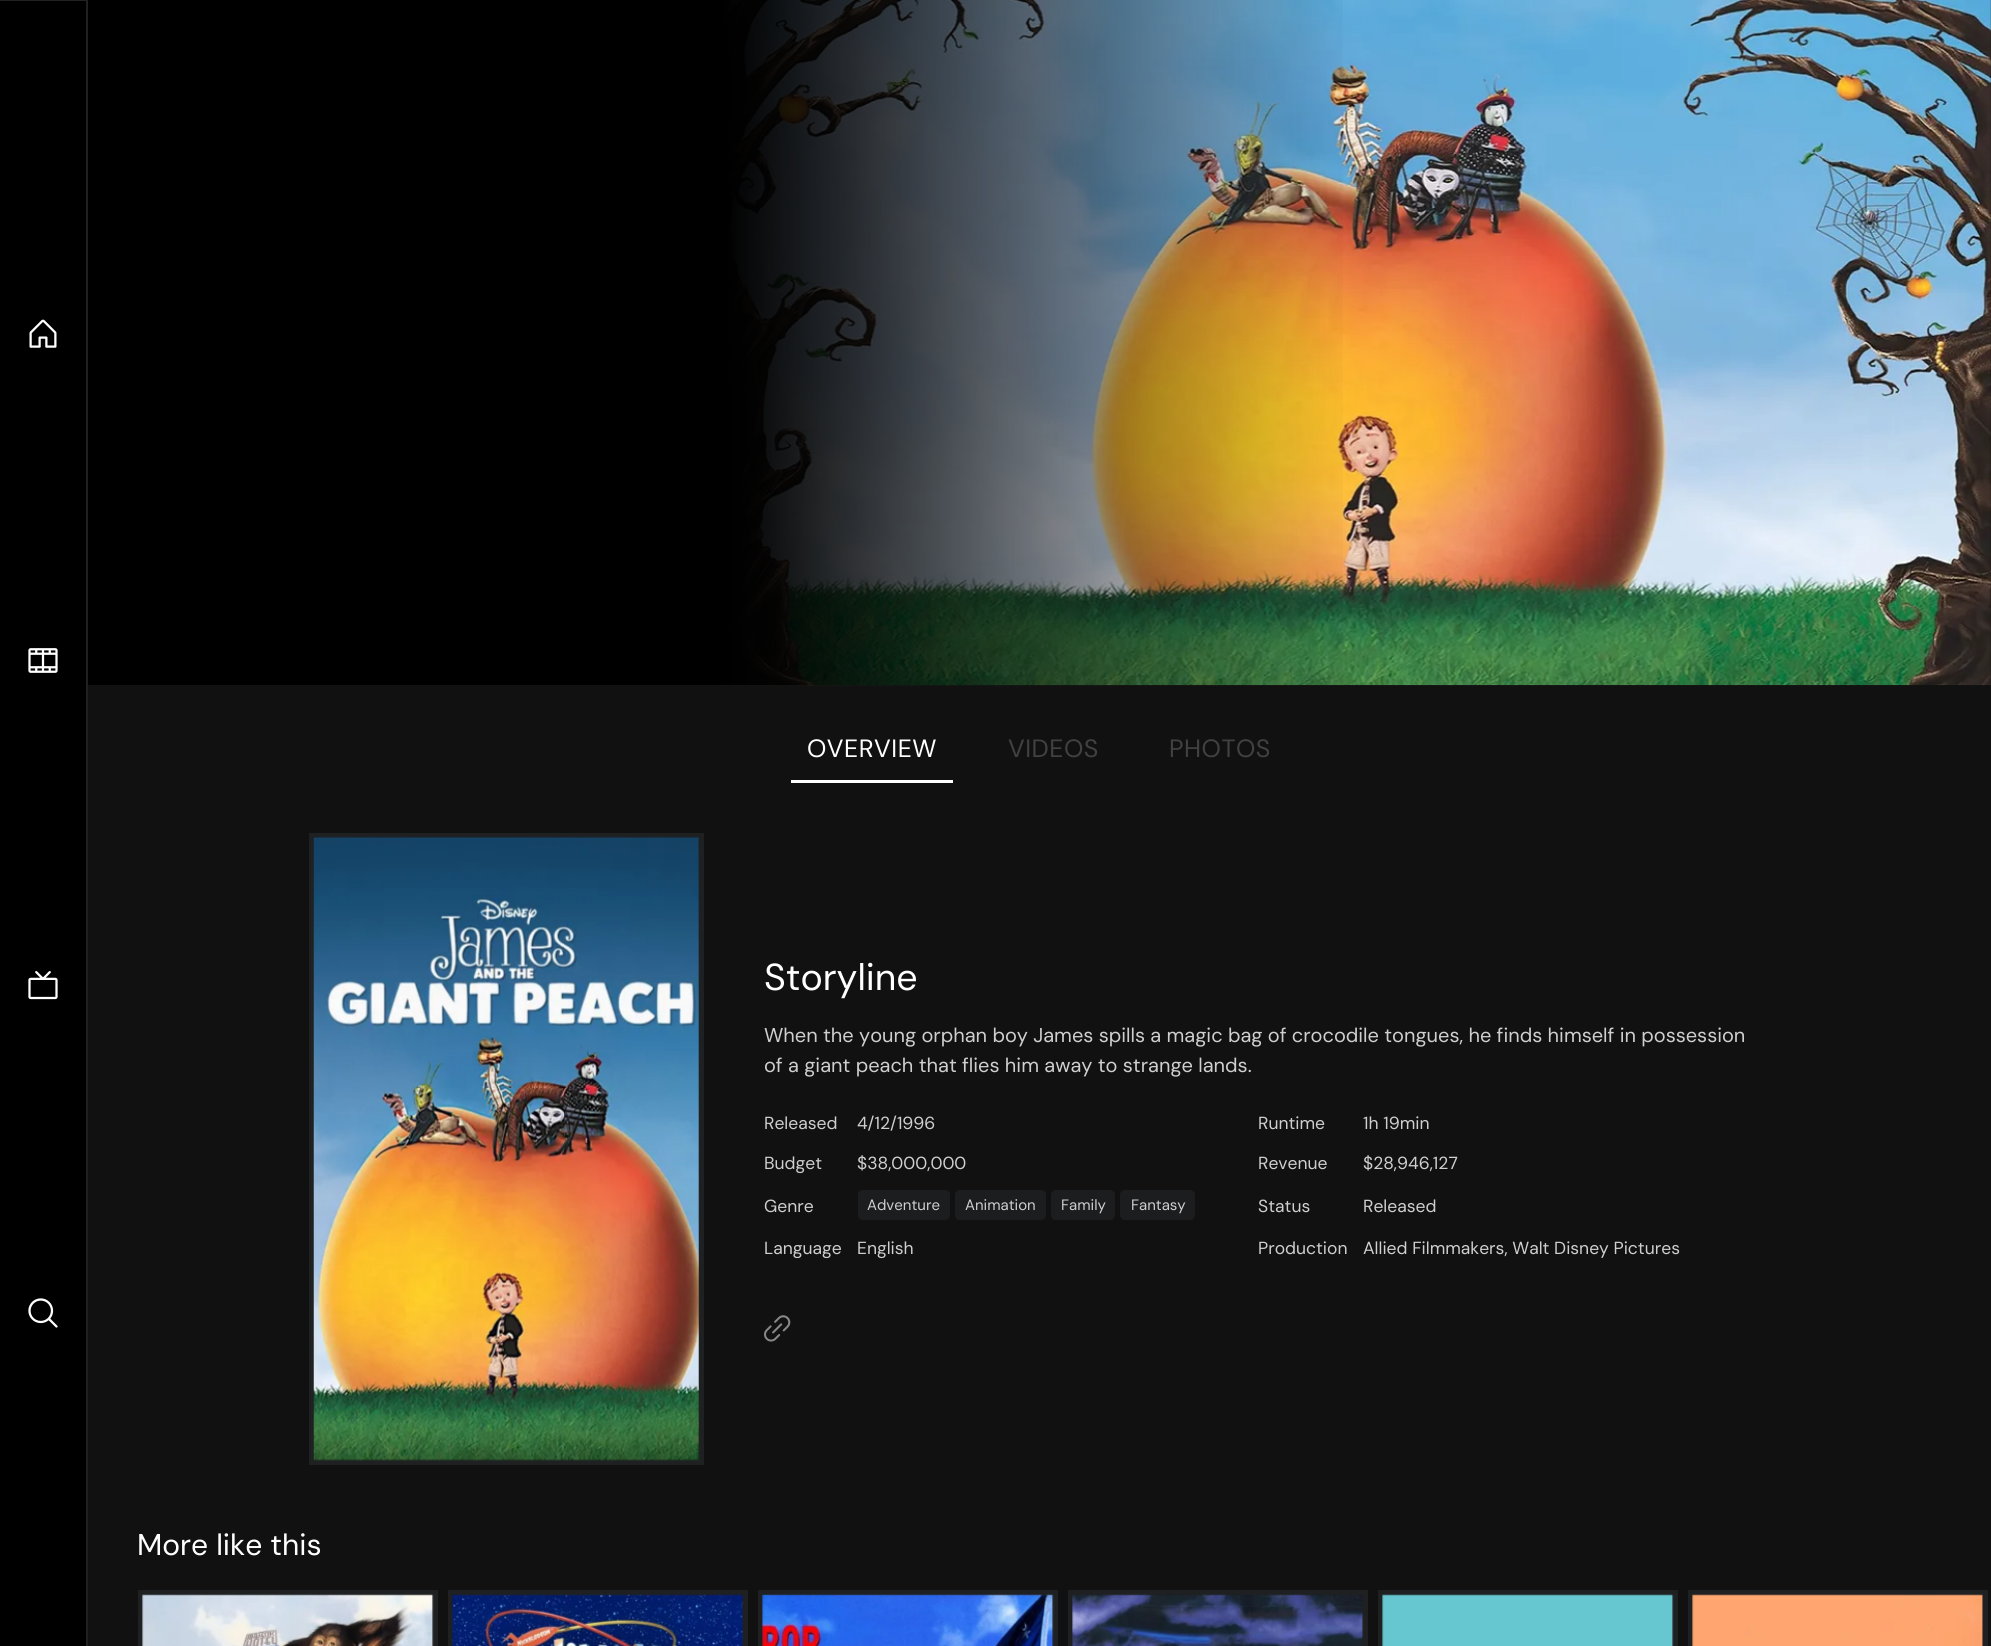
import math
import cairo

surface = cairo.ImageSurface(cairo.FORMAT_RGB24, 1991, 1646)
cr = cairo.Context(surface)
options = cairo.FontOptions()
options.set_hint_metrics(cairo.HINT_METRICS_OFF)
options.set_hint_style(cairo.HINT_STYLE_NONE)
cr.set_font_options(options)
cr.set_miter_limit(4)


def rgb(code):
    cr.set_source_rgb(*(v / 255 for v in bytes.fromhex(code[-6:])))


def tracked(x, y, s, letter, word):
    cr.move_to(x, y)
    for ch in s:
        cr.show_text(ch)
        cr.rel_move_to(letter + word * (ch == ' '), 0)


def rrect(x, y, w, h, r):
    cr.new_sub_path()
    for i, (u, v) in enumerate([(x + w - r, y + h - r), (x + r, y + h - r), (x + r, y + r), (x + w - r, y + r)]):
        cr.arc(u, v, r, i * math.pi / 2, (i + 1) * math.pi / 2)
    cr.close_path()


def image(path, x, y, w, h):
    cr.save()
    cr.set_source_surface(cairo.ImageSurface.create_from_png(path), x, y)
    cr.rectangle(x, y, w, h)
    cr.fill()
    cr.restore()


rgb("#111111")
cr.paint()
rgb("#000000")
cr.rectangle(0, 0, 88, 1646)
cr.fill()
rgb("#1f2123")
cr.new_path()
cr.move_to(0, 0)
cr.line_to(88, 0)
cr.line_to(86, 1)
cr.line_to(0, 1)
cr.close_path()
cr.fill()
cr.set_source_rgba(0.612, 0.639, 0.686, 0.2)
cr.new_path()
cr.move_to(88, 0)
cr.line_to(88, 1646)
cr.line_to(86, 1646)
cr.line_to(86, 1)
cr.close_path()
cr.fill()
image("img/1.png", 29, 319, 28, 29)
image("img/2.png", 28, 648, 30, 25)
image("img/3.png", 28, 971, 30, 29)
image("img/4.png", 28, 1298, 30, 30)
rgb("#000000")
cr.rectangle(1990, 0, 1, 685)
cr.fill()
image("img/5.png", 722, 0, 1269, 686)
gradient = cairo.LinearGradient(88, 343, 1356, 342)
gradient.add_color_stop_rgba(0, 0, 0, 0, 1)
gradient.add_color_stop_rgba(0.5, 0, 0, 0, 1)
gradient.add_color_stop_rgba(1, 0, 0, 0, 0)
cr.set_source(gradient)
cr.rectangle(88, 0, 1255, 685)
cr.fill()
rgb("#ffffff")
cr.rectangle(791, 780, 162, 3)
cr.fill()
cr.rectangle(311.5, 835.5, 390, 627)
rgb("#1f2021")
cr.set_line_width(5)
cr.stroke()
image("img/6.png", 313, 837, 386, 624)
rgb("#1c1d1e")
rrect(858, 1190, 92, 30, 5)
cr.fill()
rrect(955, 1190, 91, 30, 5)
cr.fill()
rrect(1051, 1190, 64, 30, 5)
cr.fill()
rrect(1120, 1190, 75, 30, 5)
cr.fill()
image("img/7.png", 764, 1315, 27, 27)
rgb("#1f2021")
cr.rectangle(138, 1590, 300, 56)
cr.fill()
image("img/8.png", 142, 1594, 292, 52)
cr.rectangle(448, 1590, 300, 56)
cr.fill()
image("img/9.png", 452, 1594, 292, 52)
cr.rectangle(758, 1590, 300, 56)
cr.fill()
image("img/10.png", 762, 1594, 292, 52)
cr.rectangle(1068, 1590, 300, 56)
cr.fill()
image("img/11.png", 1072, 1594, 292, 52)
cr.rectangle(1378, 1590, 300, 56)
cr.fill()
image("img/12.png", 1382, 1594, 292, 52)
cr.rectangle(1688, 1590, 300, 56)
cr.fill()
image("img/13.png", 1692, 1594, 291, 52)
cr.select_font_face("DM Sans")
cr.set_font_size(25)
rgb("#ffffff")
tracked(807, 757, "OVERVIEW", 0.5, 0)
rgb("#414141")
tracked(1008, 757, "VIDEOS", 0.5, 0)
tracked(1169, 757, "PHOTOS", 0.5, 0)
cr.set_font_size(37.5)
rgb("#ffffff")
cr.move_to(764, 990)
cr.show_text("Storyline")
cr.set_font_size(20)
rgb("#cfcfcf")
cr.move_to(764, 1042)
cr.show_text("When the young orphan boy James spills a magic bag of crocodile tongues, he finds himself in possession")
cr.move_to(764, 1072)
cr.show_text("of a giant peach that flies him away to strange lands.")
cr.set_font_size(17.5)
for x, y, s in [
    (764, 1129, "Released"),
    (857, 1129, "4/12/1996"),
    (1258, 1129, "Runtime"),
    (1363, 1129, "1h 19min"),
    (764, 1169, "Budget"),
    (857, 1169, "$38,000,000"),
    (1258, 1169, "Revenue"),
    (1363, 1169, "$28,946,127"),
    (764, 1212, "Genre"),
]:
    cr.move_to(x, y)
    cr.show_text(s)
cr.set_font_size(15)
for x, y, s in [
    (867, 1210, "Adventure"),
    (965, 1210, "Animation"),
    (1061, 1210, "Family"),
    (1131, 1210, "Fantasy"),
]:
    cr.move_to(x, y)
    cr.show_text(s)
cr.set_font_size(17.5)
for x, y, s in [
    (1258, 1212, "Status"),
    (1363, 1212, "Released"),
    (764, 1254, "Language"),
    (857, 1254, "English"),
    (1258, 1254, "Production"),
    (1363, 1254, "Allied Filmmakers, Walt Disney Pictures"),
]:
    cr.move_to(x, y)
    cr.show_text(s)
cr.set_font_size(30)
rgb("#ffffff")
cr.move_to(137, 1555)
cr.show_text("More like this")
surface.write_to_png("page.png")
